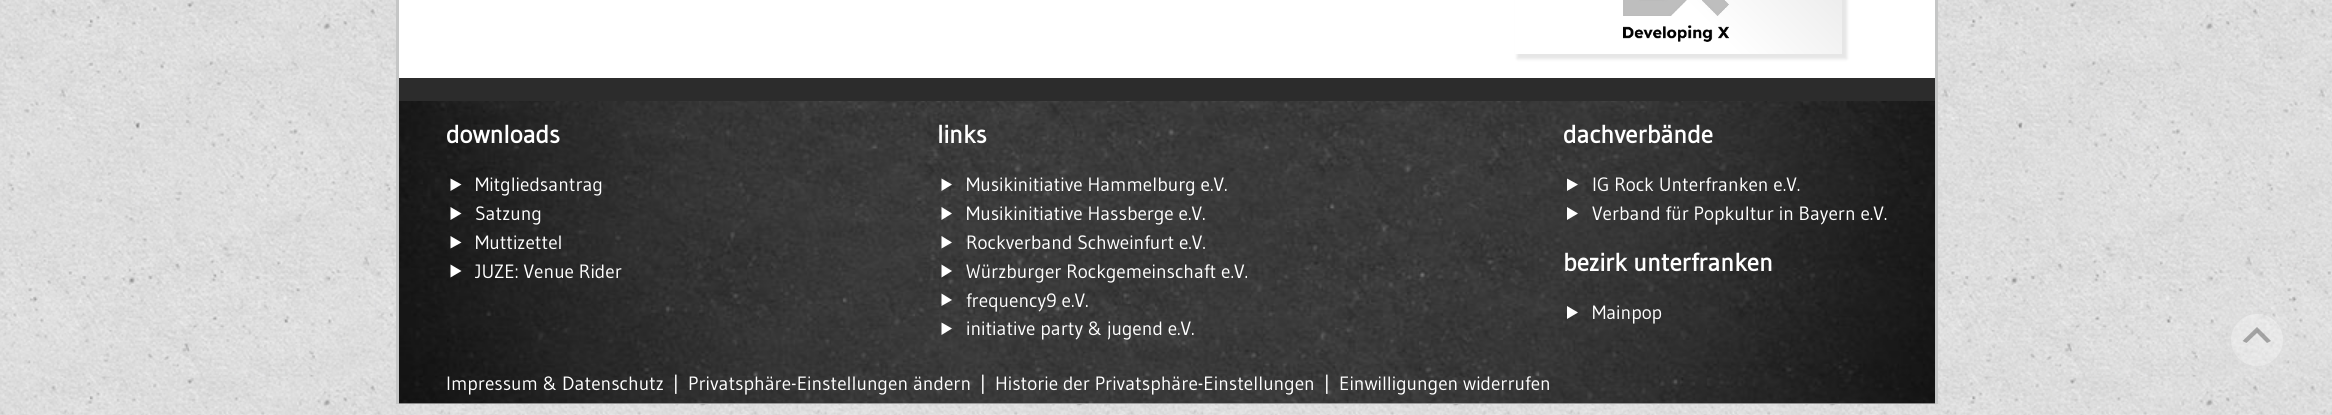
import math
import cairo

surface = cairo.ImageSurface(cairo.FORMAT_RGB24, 2332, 415)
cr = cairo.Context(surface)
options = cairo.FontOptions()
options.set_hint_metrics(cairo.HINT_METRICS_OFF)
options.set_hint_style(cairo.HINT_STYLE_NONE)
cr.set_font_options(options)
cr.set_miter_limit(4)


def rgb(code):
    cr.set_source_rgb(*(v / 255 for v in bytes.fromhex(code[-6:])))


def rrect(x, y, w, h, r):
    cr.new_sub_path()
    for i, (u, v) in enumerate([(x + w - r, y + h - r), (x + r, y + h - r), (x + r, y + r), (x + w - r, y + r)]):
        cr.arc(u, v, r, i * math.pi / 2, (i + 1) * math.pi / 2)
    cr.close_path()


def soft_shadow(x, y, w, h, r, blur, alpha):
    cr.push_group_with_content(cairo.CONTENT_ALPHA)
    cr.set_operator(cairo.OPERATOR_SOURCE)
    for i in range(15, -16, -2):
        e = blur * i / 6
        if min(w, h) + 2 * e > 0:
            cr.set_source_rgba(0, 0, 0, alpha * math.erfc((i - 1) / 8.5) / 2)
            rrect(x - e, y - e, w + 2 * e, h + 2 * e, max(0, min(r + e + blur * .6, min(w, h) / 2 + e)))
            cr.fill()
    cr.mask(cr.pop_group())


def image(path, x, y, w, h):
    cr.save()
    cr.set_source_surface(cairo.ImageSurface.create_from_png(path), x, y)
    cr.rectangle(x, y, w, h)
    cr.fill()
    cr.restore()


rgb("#ffffff")
cr.paint()
image("img/1.png", 0, 0, 2332, 415)
for x, y, w, h, color in [
    (399, 0, 1536, 404, "#ffffff"),
    (1935, 0, 3, 404, "#c5c6c6"),
    (396, 0, 3, 404, "#c5c6c6"),
]:
    rgb(color)
    cr.rectangle(x, y, w, h)
    cr.fill()
rgb("#000000")
soft_shadow(1517, -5, 330, 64, 0, 1.5, 0.1)
gradient = cairo.LinearGradient(1790, -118, 1565, 107)
gradient.add_color_stop_rgba(0, 0.902, 0.902, 0.902, 1)
gradient.add_color_stop_rgba(0.5, 1, 1, 1, 1)
gradient.add_color_stop_rgba(1, 1, 1, 1, 1)
cr.set_source(gradient)
cr.rectangle(1515, 0, 327, 54)
cr.fill()
image("img/2.png", 1623, 0, 107, 42)
image("img/3.png", 399, 101, 1536, 303)
rgb("#2c2c2c")
cr.rectangle(399, 78, 1536, 23)
cr.fill()
rgb("#ffffff")
cr.new_path()
cr.move_to(450.5, 178.5)
cr.line_to(461.5, 184.5)
cr.line_to(450.5, 191)
cr.close_path()
cr.fill()
cr.new_path()
cr.move_to(450.5, 207)
cr.line_to(461.5, 213.5)
cr.line_to(450.5, 220)
cr.close_path()
cr.fill()
cr.new_path()
cr.move_to(450.5, 236)
cr.line_to(461.5, 242.5)
cr.line_to(450.5, 248.5)
cr.close_path()
cr.fill()
cr.new_path()
cr.move_to(450.5, 264.5)
cr.line_to(461.5, 271)
cr.line_to(450.5, 277.5)
cr.close_path()
cr.fill()
cr.new_path()
cr.move_to(941.5, 178.5)
cr.line_to(952, 184.5)
cr.line_to(941.5, 191)
cr.close_path()
cr.fill()
cr.new_path()
cr.move_to(941.5, 207)
cr.line_to(952, 213.5)
cr.line_to(941.5, 220)
cr.close_path()
cr.fill()
cr.new_path()
cr.move_to(941.5, 236)
cr.line_to(952, 242.5)
cr.line_to(941.5, 248.5)
cr.close_path()
cr.fill()
cr.new_path()
cr.move_to(941.5, 264.5)
cr.line_to(952, 271)
cr.line_to(941.5, 277.5)
cr.close_path()
cr.fill()
cr.new_path()
cr.move_to(941.5, 293.5)
cr.line_to(952, 300)
cr.line_to(941.5, 306)
cr.close_path()
cr.fill()
cr.new_path()
cr.move_to(941.5, 322.5)
cr.line_to(952, 328.5)
cr.line_to(941.5, 335)
cr.close_path()
cr.fill()
cr.new_path()
cr.move_to(1567, 178.5)
cr.line_to(1578, 184.5)
cr.line_to(1567, 191)
cr.close_path()
cr.fill()
cr.new_path()
cr.move_to(1567, 207)
cr.line_to(1578, 213.5)
cr.line_to(1567, 220)
cr.close_path()
cr.fill()
cr.new_path()
cr.move_to(1567, 306)
cr.line_to(1578, 312.5)
cr.line_to(1567, 319)
cr.close_path()
cr.fill()
cr.set_source_rgba(1, 1, 1, 0.3)
cr.arc(2257, 340, 28, 0, 2 * math.pi)
cr.fill()
cr.arc(2257, 340, 27, 0, 2 * math.pi)
cr.set_source_rgba(0.773, 0.776, 0.776, 0.3)
cr.stroke()
cr.set_source_rgba(0, 0, 0, 0.3)
cr.new_path()
cr.move_to(2267, 343)
cr.line_to(2257, 333)
cr.line_to(2246.5, 343)
cr.line_to(2242.5, 341)
cr.line_to(2257, 327)
cr.line_to(2271, 341)
cr.close_path()
cr.fill()
cr.select_font_face("Gudea", cairo.FONT_SLANT_NORMAL, cairo.FONT_WEIGHT_BOLD)
cr.set_font_size(25)
rgb("#ffffff")
cr.move_to(446, 143)
cr.show_text("downloads")
cr.select_font_face("Gudea")
cr.set_font_size(19.25)
for x, y, s in [
    (475, 191, "Mitgliedsantrag"),
    (475, 220, "Satzung"),
    (475, 249, "Muttizettel"),
    (475, 278, "JUZE: Venue Rider"),
]:
    cr.move_to(x, y)
    cr.show_text(s)
cr.select_font_face("Gudea", cairo.FONT_SLANT_NORMAL, cairo.FONT_WEIGHT_BOLD)
cr.set_font_size(25)
cr.move_to(937, 143)
cr.show_text("links")
cr.select_font_face("Gudea")
cr.set_font_size(19.25)
for x, y, s in [
    (966, 191, "Musikinitiative Hammelburg e.V."),
    (966, 220, "Musikinitiative Hassberge e.V."),
    (966, 249, "Rockverband Schweinfurt e.V."),
    (966, 278, "Würzburger Rockgemeinschaft e.V."),
    (966, 307, "frequency9 e.V."),
    (966, 335, "initiative party & jugend e.V."),
]:
    cr.move_to(x, y)
    cr.show_text(s)
cr.select_font_face("Gudea", cairo.FONT_SLANT_NORMAL, cairo.FONT_WEIGHT_BOLD)
cr.set_font_size(25)
cr.move_to(1563, 143)
cr.show_text("dachverbände")
cr.select_font_face("Gudea")
cr.set_font_size(19.25)
cr.move_to(1592, 191)
cr.show_text("IG Rock Unterfranken e.V.")
cr.move_to(1592, 220)
cr.show_text("Verband für Popkultur in Bayern e.V.")
cr.select_font_face("Gudea", cairo.FONT_SLANT_NORMAL, cairo.FONT_WEIGHT_BOLD)
cr.set_font_size(25)
cr.move_to(1563, 271)
cr.show_text("bezirk unterfranken")
cr.select_font_face("Gudea")
cr.set_font_size(19.25)
for x, y, s in [
    (1592, 319, "Mainpop"),
    (446, 390, "Impressum & Datenschutz"),
    (673, 390, "|"),
    (688, 390, "Privatsphäre-Einstellungen ändern"),
    (980, 390, "|"),
    (995, 390, "Historie der Privatsphäre-Einstellungen"),
    (1324, 390, "|"),
    (1339, 390, "Einwilligungen widerrufen"),
]:
    cr.move_to(x, y)
    cr.show_text(s)
surface.write_to_png("page.png")
